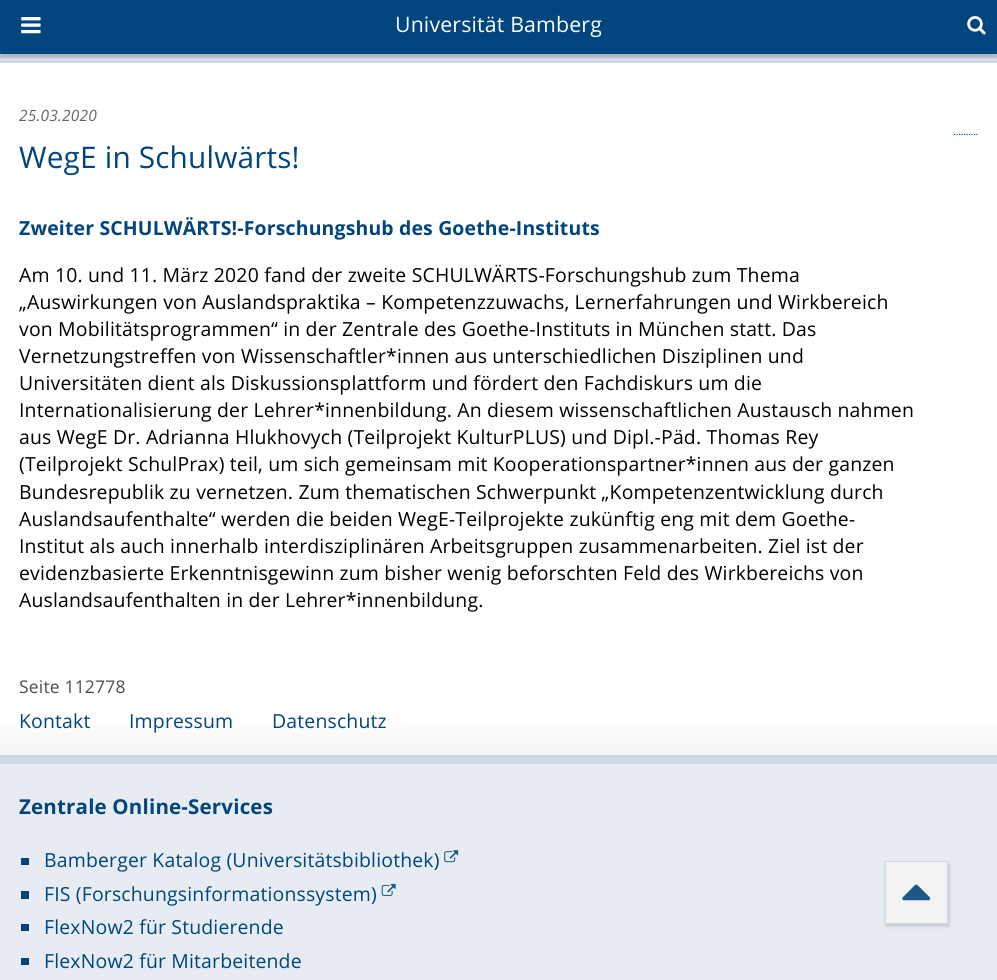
import math
import cairo

surface = cairo.ImageSurface(cairo.FORMAT_RGB24, 997, 980)
cr = cairo.Context(surface)
options = cairo.FontOptions()
options.set_hint_metrics(cairo.HINT_METRICS_OFF)
options.set_hint_style(cairo.HINT_STYLE_NONE)
cr.set_font_options(options)
cr.set_miter_limit(4)


def rgb(code):
    cr.set_source_rgb(*(v / 255 for v in bytes.fromhex(code[-6:])))


def tracked(x, y, s, letter, word):
    cr.move_to(x, y)
    for ch in s:
        cr.show_text(ch)
        cr.rel_move_to(letter + word * (ch == ' '), 0)


def rrect(x, y, w, h, r):
    cr.new_sub_path()
    for i, (u, v) in enumerate([(x + w - r, y + h - r), (x + r, y + h - r), (x + r, y + r), (x + w - r, y + r)]):
        cr.arc(u, v, r, i * math.pi / 2, (i + 1) * math.pi / 2)
    cr.close_path()


def soft_shadow(x, y, w, h, r, blur, alpha):
    cr.push_group_with_content(cairo.CONTENT_ALPHA)
    cr.set_operator(cairo.OPERATOR_SOURCE)
    for i in range(15, -16, -2):
        e = blur * i / 6
        if min(w, h) + 2 * e > 0:
            cr.set_source_rgba(0, 0, 0, alpha * math.erfc((i - 1) / 8.5) / 2)
            rrect(x - e, y - e, w + 2 * e, h + 2 * e, max(0, min(r + e + blur * .6, min(w, h) / 2 + e)))
            cr.fill()
    cr.mask(cr.pop_group())


def image(path, x, y, w, h):
    cr.save()
    cr.set_source_surface(cairo.ImageSurface.create_from_png(path), x, y)
    cr.rectangle(x, y, w, h)
    cr.fill()
    cr.restore()


rgb("#ffffff")
cr.paint()
rgb("#d8e3ed")
cr.rectangle(0, 54, 997, 9)
cr.fill()
rgb("#c1cad2")
cr.rectangle(0, 61, 997, 1)
cr.fill()
rgb("#000000")
soft_shadow(0, 4, 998, 54, 0, 1, 0.2)
rgb("#00457d")
cr.rectangle(0, 0, 997, 54)
cr.fill()
image("img/1.png", 21, 17, 20, 17)
image("img/2.png", 967, 16, 19, 19)
cr.new_path()
cr.move_to(954, 134.5)
cr.line_to(979, 134.5)
rgb("#1a588a")
cr.set_line_width(1.2)
cr.set_dash([1.25, 1.25])
cr.stroke()
rgb("#e6ecf2")
cr.rectangle(0, 764, 997, 216)
cr.fill()
rgb("#646464")
soft_shadow(886, 864, 63, 62, 0, 2, 0.3)
rgb("#f2f2f2")
cr.rectangle(885.5, 861.5, 62, 62)
cr.fill_preserve()
rgb("#ccdae5")
cr.set_line_width(1)
cr.set_dash([])
cr.stroke()
image("img/3.png", 902, 884, 29, 17)
gradient = cairo.LinearGradient(499, 674, 499, 755)
gradient.add_color_stop_rgba(0.5, 1, 1, 1, 1)
gradient.add_color_stop_rgba(1, 0.961, 0.961, 0.961, 1)
cr.set_source(gradient)
cr.rectangle(0, 725, 997, 30)
cr.fill()
rgb("#ccdae5")
cr.rectangle(0, 755, 997, 9)
cr.fill()
rgb("#00457d")
cr.rectangle(21, 858, 8, 7)
cr.fill()
image("img/4.png", 444, 850, 15, 13)
cr.rectangle(21, 891, 8, 8)
cr.fill()
image("img/5.png", 381, 883, 15, 13)
cr.rectangle(21, 924, 8, 7)
cr.fill()
cr.rectangle(21, 958, 8, 7)
cr.fill()
cr.select_font_face("Open Sans")
cr.set_font_size(21.25)
rgb("#ffffff")
tracked(395, 32, "Universität Bamberg", 0.18, 0)
cr.select_font_face("Open Sans", cairo.FONT_SLANT_ITALIC)
cr.set_font_size(15.5)
rgb("#666666")
tracked(19, 121, "25.03.2020", 0.18, 0)
cr.select_font_face("Open Sans")
cr.set_font_size(29.75)
rgb("#00457d")
tracked(19, 168, "WegE in Schulwärts!", 0.18, 0)
cr.select_font_face("Open Sans", cairo.FONT_SLANT_NORMAL, cairo.FONT_WEIGHT_BOLD)
cr.set_font_size(19.4)
tracked(19, 235, "Zweiter SCHULWÄRTS!-Forschungshub des Goethe-Instituts", 0.18, 0)
cr.select_font_face("Open Sans")
rgb("#000000")
for x, y, s in [
    (19, 282, "Am 10. und 11. März 2020 fand der zweite SCHULWÄRTS-Forschungshub zum Thema"),
    (19, 309, "„Auswirkungen von Auslandspraktika – Kompetenzzuwachs, Lernerfahrungen und Wirkbereich"),
    (19, 336, "von Mobilitätsprogrammen“ in der Zentrale des Goethe-Instituts in München statt. Das"),
    (19, 363, "Vernetzungstreffen von Wissenschaftler*innen aus unterschiedlichen Disziplinen und"),
    (19, 390, "Universitäten dient als Diskussionsplattform und fördert den Fachdiskurs um die"),
    (19, 417, "Internationalisierung der Lehrer*innenbildung. An diesem wissenschaftlichen Austausch nahmen"),
    (19, 444, "aus WegE Dr. Adrianna Hlukhovych (Teilprojekt KulturPLUS) und Dipl.-Päd. Thomas Rey"),
    (19, 471, "(Teilprojekt SchulPrax) teil, um sich gemeinsam mit Kooperationspartner*innen aus der ganzen"),
    (19, 499, "Bundesrepublik zu vernetzen. Zum thematischen Schwerpunkt „Kompetenzentwicklung durch"),
    (19, 526, "Auslandsaufenthalte“ werden die beiden WegE-Teilprojekte zukünftig eng mit dem Goethe-"),
    (19, 553, "Institut als auch innerhalb interdisziplinären Arbeitsgruppen zusammenarbeiten. Ziel ist der"),
    (19, 580, "evidenzbasierte Erkenntnisgewinn zum bisher wenig beforschten Feld des Wirkbereichs von"),
    (19, 607, "Auslandsaufenthalten in der Lehrer*innenbildung."),
]:
    tracked(x, y, s, 0.18, 0)
cr.set_font_size(17.5)
rgb("#4d4d4d")
tracked(19, 693, "Seite 112778", 0.18, 0)
cr.set_font_size(19.4)
rgb("#00457d")
for x, y, s in [
    (19, 728, "Kontakt"),
    (129, 728, "Impressum"),
    (272, 728, "Datenschutz"),
]:
    tracked(x, y, s, 0.18, 0)
cr.select_font_face("Open Sans", cairo.FONT_SLANT_NORMAL, cairo.FONT_WEIGHT_BOLD)
cr.set_font_size(20.5)
tracked(19, 814, "Zentrale Online-Services", 0.18, 0)
cr.select_font_face("Open Sans")
cr.set_font_size(19.4)
for x, y, s in [
    (44, 867, "Bamberger Katalog (Universitätsbibliothek)"),
    (44, 901, "FIS (Forschungsinformationssystem)"),
    (44, 934, "FlexNow2 für Studierende"),
    (44, 968, "FlexNow2 für Mitarbeitende"),
]:
    tracked(x, y, s, 0.18, 0)
surface.write_to_png("page.png")
